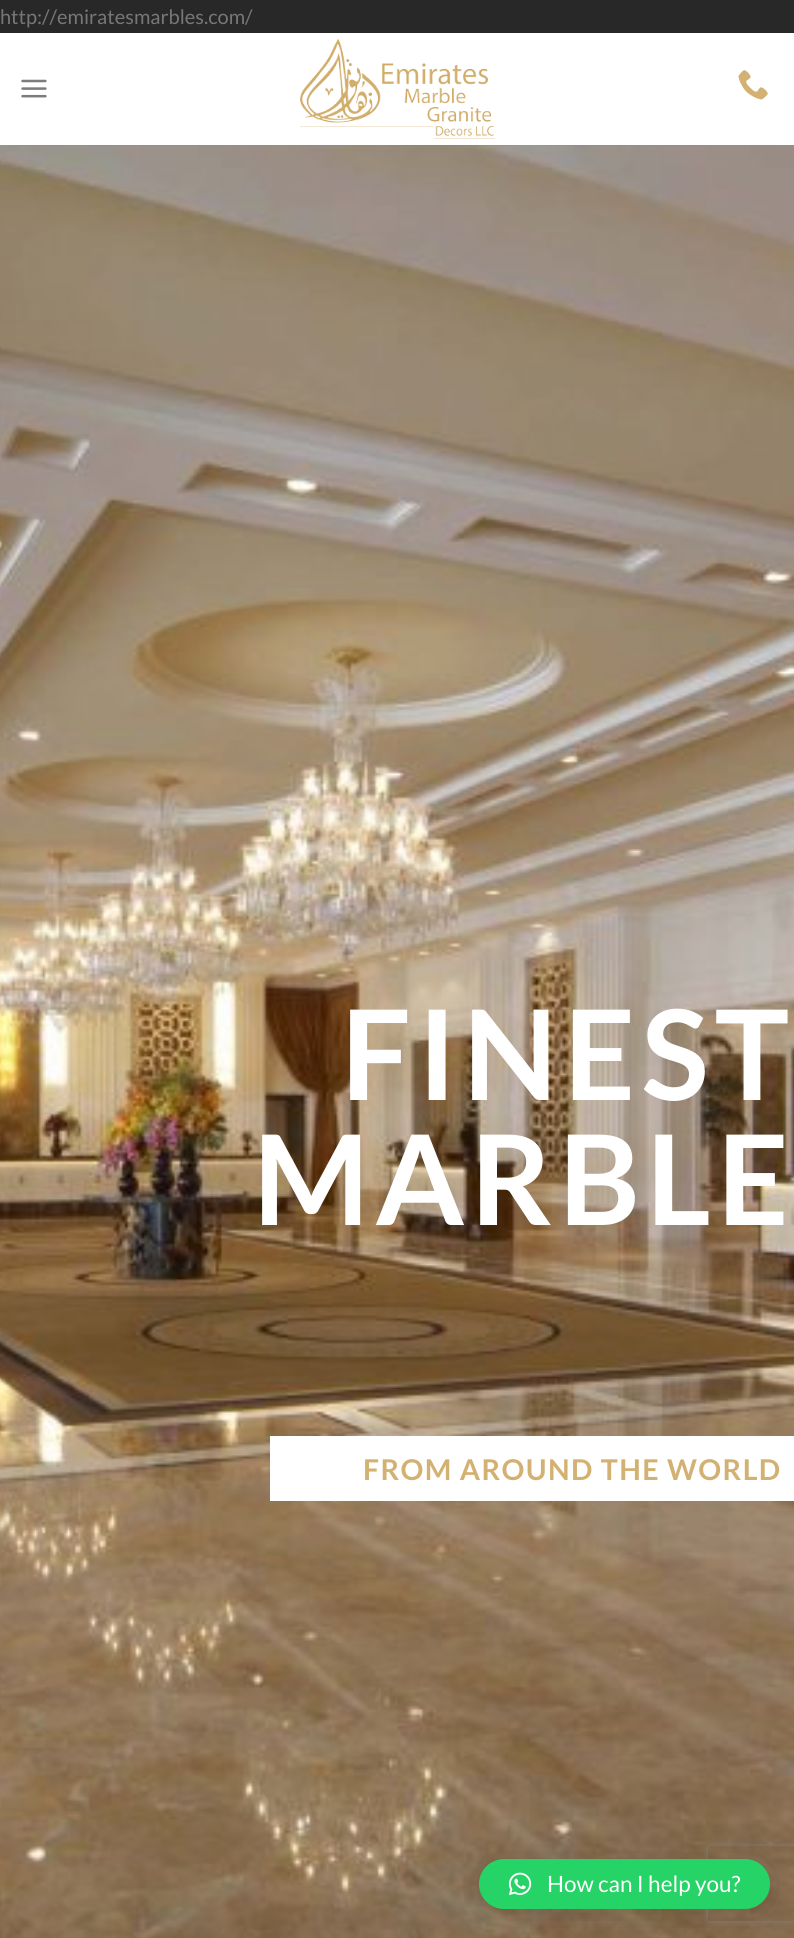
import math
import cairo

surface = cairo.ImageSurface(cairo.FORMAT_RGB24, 794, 1938)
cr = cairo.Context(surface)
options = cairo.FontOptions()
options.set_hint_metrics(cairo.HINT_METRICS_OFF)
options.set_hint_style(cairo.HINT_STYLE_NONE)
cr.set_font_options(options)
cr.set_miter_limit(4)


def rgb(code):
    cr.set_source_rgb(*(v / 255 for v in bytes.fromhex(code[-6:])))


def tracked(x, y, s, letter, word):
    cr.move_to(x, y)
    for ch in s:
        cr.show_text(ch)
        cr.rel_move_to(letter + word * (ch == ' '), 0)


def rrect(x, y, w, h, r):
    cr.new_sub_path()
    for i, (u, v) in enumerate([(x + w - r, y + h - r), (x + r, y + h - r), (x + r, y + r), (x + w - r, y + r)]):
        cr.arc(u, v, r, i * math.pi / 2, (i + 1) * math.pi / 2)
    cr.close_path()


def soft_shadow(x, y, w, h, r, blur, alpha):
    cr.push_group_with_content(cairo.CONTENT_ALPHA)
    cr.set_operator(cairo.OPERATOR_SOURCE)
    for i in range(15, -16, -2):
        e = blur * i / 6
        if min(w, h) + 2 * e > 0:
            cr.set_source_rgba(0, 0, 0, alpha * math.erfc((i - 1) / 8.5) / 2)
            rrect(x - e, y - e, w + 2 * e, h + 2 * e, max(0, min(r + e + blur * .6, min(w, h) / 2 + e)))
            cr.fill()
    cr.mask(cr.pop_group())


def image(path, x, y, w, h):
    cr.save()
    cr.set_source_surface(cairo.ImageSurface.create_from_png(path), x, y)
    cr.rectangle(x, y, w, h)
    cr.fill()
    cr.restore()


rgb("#282828")
cr.paint()
rgb("#ffffff")
cr.rectangle(0, 33, 794, 112)
cr.fill()
image("img/1.png", 21, 79, 26, 19)
image("img/2.png", 300, 38, 195, 101)
image("img/3.png", 738, 70, 30, 30)
image("img/4.png", 0, 145, 794, 1793)
cr.set_source_rgba(0.467, 0.467, 0.467, 0.1)
cr.rectangle(19, 145, 757, 1)
cr.fill()
rgb("#ffffff")
cr.rectangle(270, 1436, 524, 65)
cr.fill()
rgb("#000000")
soft_shadow(479, 1861, 291, 50, 25, 20, 0.16)
cr.save()
cr.set_fill_rule(cairo.FILL_RULE_EVEN_ODD)
cr.new_path()
cr.move_to(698, 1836)
cr.line_to(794, 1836)
cr.line_to(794, 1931)
cr.line_to(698, 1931)
cr.close_path()
cr.move_to(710.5, 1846)
cr.line_to(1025.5, 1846)
cr.curve_to(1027, 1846, 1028, 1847, 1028, 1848.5)
cr.line_to(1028, 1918.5)
cr.curve_to(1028, 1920, 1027, 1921, 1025.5, 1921)
cr.line_to(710.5, 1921)
cr.curve_to(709, 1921, 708, 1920, 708, 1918.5)
cr.line_to(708, 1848.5)
cr.curve_to(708, 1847, 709, 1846, 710.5, 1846)
cr.close_path()
cr.clip()
rgb("#808080")
soft_shadow(708, 1846, 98, 75, 2.5, 3, 1)
cr.restore()
rgb("#25d366")
rrect(479, 1859, 291, 50, 25)
cr.fill()
image("img/5.png", 508, 1872, 24, 23)
cr.select_font_face("Lato")
cr.set_font_size(20)
rgb("#777777")
cr.move_to(0, 24)
cr.show_text("http://emiratesmarbles.com/")
cr.select_font_face("Lato", cairo.FONT_SLANT_NORMAL, cairo.FONT_WEIGHT_BOLD)
cr.set_font_size(125)
rgb("#ffffff")
tracked(341, 1100, "FINEST", 6.25, 0)
tracked(253, 1225, "MARBLE", 6.25, 0)
cr.set_font_size(28.6)
rgb("#d3b172")
tracked(363, 1480, "FROM AROUND THE WORLD", 1.4, 0)
cr.select_font_face("Lato")
cr.set_font_size(22.5)
rgb("#ffffff")
cr.move_to(547, 1892)
cr.show_text("How can I help you?")
surface.write_to_png("page.png")
